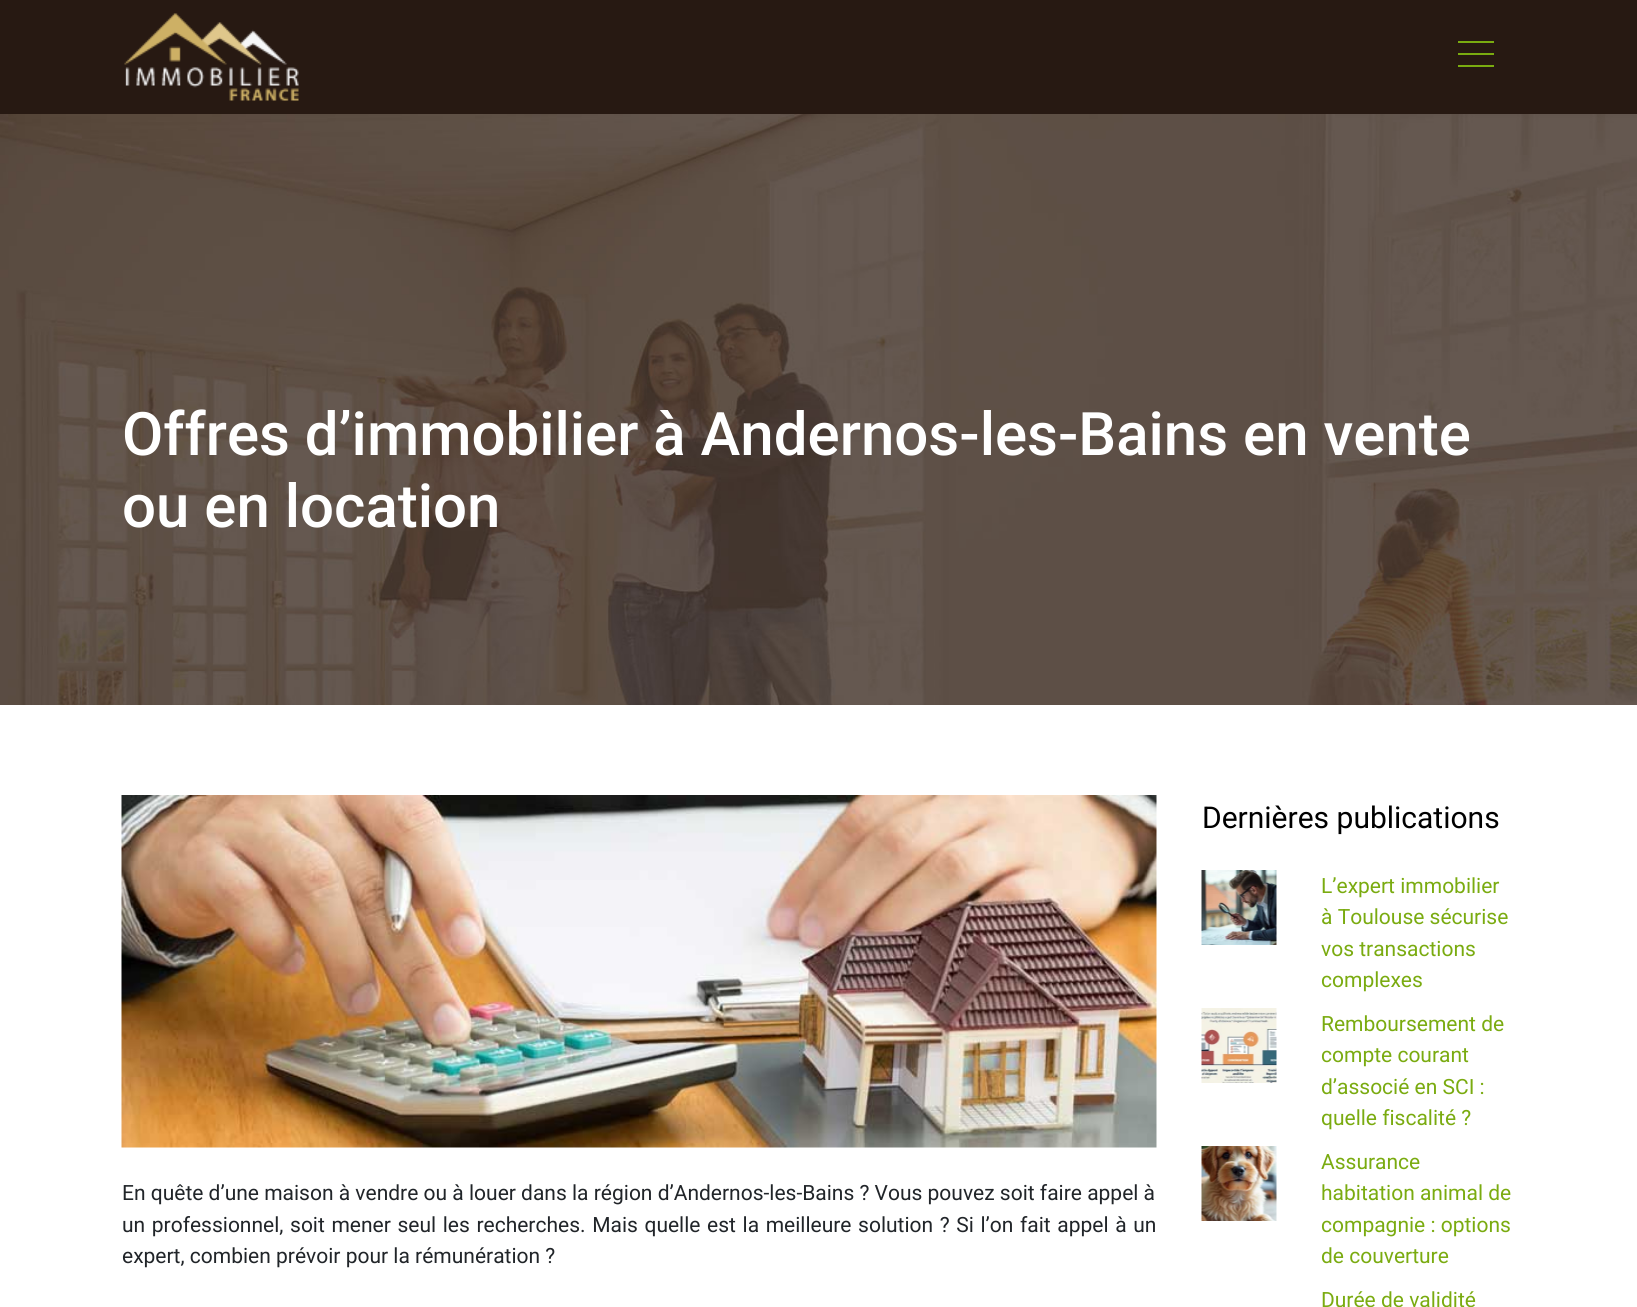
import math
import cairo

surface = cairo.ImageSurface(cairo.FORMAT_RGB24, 1637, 1307)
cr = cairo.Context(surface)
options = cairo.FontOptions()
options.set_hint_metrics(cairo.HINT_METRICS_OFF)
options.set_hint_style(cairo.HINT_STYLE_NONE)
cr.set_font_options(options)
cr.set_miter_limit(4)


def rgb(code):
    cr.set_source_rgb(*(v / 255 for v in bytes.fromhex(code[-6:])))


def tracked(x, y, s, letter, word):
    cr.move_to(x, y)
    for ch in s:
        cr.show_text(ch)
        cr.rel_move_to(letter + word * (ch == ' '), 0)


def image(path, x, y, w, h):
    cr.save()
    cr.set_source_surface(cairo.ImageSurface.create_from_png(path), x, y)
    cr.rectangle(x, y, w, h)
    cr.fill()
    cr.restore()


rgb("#ffffff")
cr.paint()
rgb("#271912")
cr.rectangle(0, 0, 1637, 114)
cr.fill()
image("img/1.png", 124, 13, 175, 88)
for x, y, w, h, color in [
    (1458, 41, 36, 2, "#7aab10"),
    (1458, 53, 36, 2, "#7aab10"),
    (1458, 65, 36, 2, "#7aab10"),
]:
    rgb(color)
    cr.rectangle(x, y, w, h)
    cr.fill()
image("img/2.png", 0, 114, 1637, 591)
image("img/3.png", 121, 795, 1036, 353)
image("img/4.png", 1201, 870, 76, 75)
image("img/5.png", 1201, 1008, 76, 75)
image("img/6.png", 1201, 1146, 76, 75)
cr.select_font_face("Roboto Medium")
cr.set_font_size(60)
rgb("#ffffff")
cr.move_to(122, 455)
cr.show_text("Offres d’immobilier à Andernos-les-Bains en vente")
cr.move_to(122, 527)
cr.show_text("ou en location")
cr.select_font_face("Roboto")
cr.set_font_size(21)
rgb("#212529")
cr.move_to(122, 1200)
cr.show_text("En quête d’une maison à vendre ou à louer dans la région d’Andernos-les-Bains ? Vous pouvez soit faire appel à")
tracked(122, 1232, "un professionnel, soit mener seul les recherches. Mais quelle est la meilleure solution ? Si l’on fait appel à un", 0, 1.4)
cr.move_to(122, 1263)
cr.show_text("expert, combien prévoir pour la rémunération ?")
cr.set_font_size(30)
rgb("#000000")
cr.move_to(1202, 828)
cr.show_text("Dernières publications")
cr.set_font_size(21)
rgb("#7aab10")
for x, y, s in [
    (1321, 893, "L’expert immobilier"),
    (1321, 924, "à Toulouse sécurise"),
    (1321, 956, "vos transactions"),
    (1321, 987, "complexes"),
    (1321, 1031, "Remboursement de"),
    (1321, 1062, "compte courant"),
    (1321, 1094, "d’associé en SCI :"),
    (1321, 1125, "quelle fiscalité ?"),
    (1321, 1169, "Assurance"),
    (1321, 1200, "habitation animal de"),
    (1321, 1232, "compagnie : options"),
    (1321, 1263, "de couverture"),
    (1321, 1307, "Durée de validité"),
]:
    cr.move_to(x, y)
    cr.show_text(s)
surface.write_to_png("page.png")
